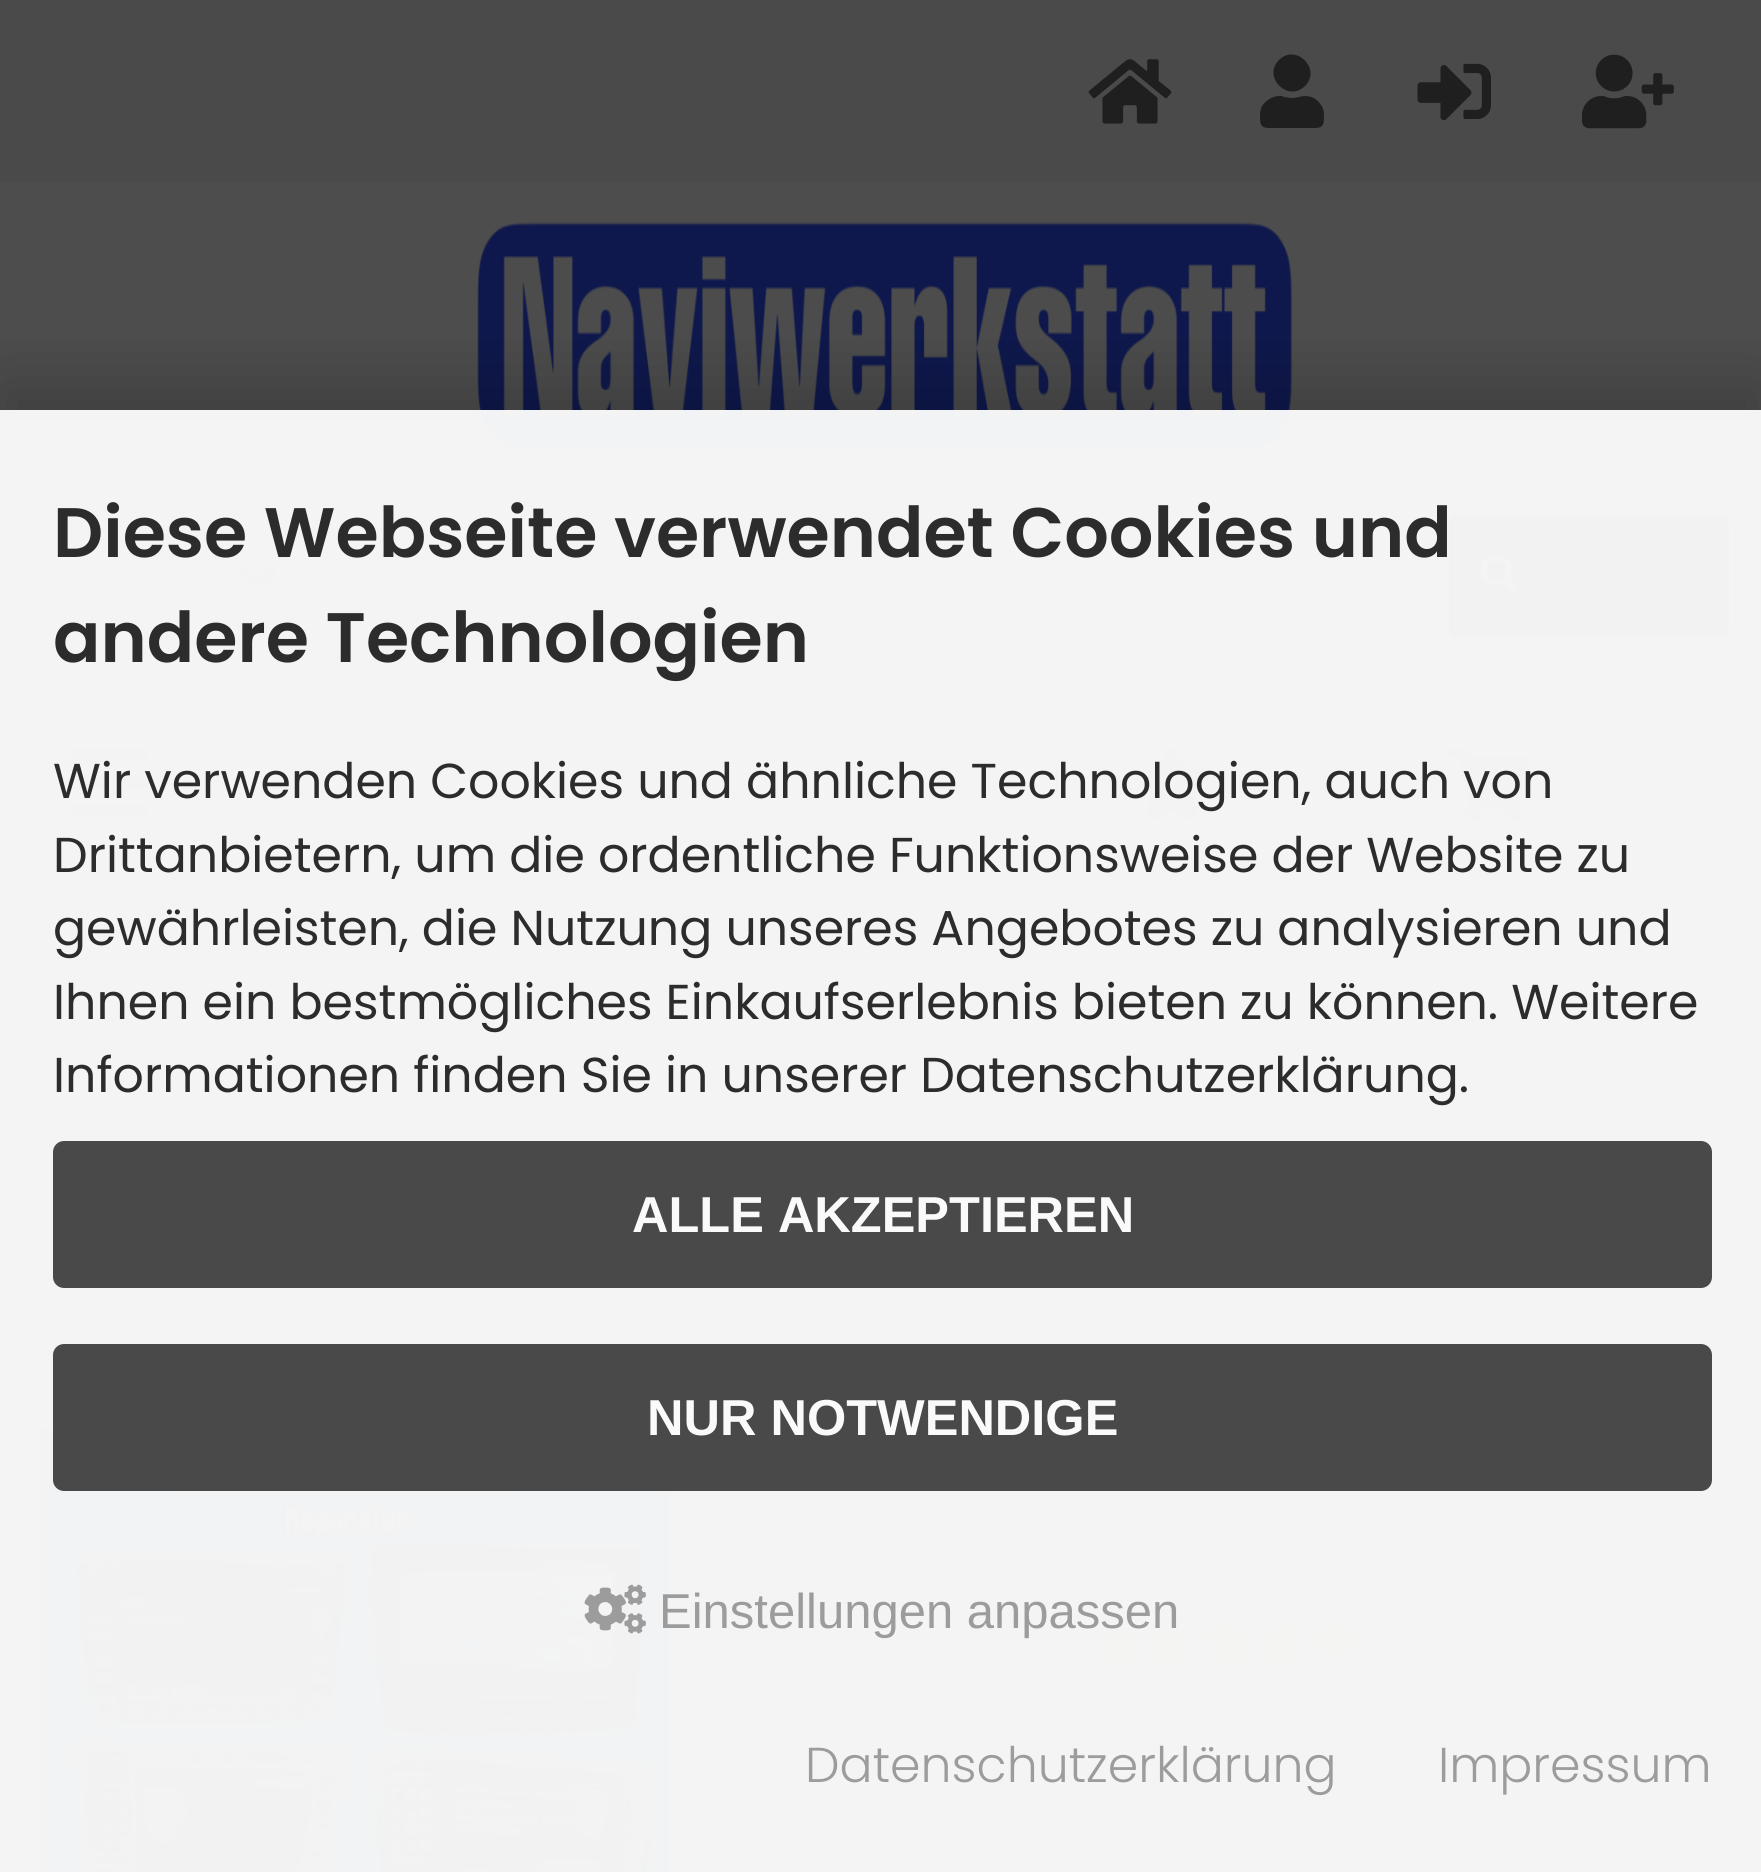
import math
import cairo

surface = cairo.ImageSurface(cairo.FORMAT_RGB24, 1761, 1872)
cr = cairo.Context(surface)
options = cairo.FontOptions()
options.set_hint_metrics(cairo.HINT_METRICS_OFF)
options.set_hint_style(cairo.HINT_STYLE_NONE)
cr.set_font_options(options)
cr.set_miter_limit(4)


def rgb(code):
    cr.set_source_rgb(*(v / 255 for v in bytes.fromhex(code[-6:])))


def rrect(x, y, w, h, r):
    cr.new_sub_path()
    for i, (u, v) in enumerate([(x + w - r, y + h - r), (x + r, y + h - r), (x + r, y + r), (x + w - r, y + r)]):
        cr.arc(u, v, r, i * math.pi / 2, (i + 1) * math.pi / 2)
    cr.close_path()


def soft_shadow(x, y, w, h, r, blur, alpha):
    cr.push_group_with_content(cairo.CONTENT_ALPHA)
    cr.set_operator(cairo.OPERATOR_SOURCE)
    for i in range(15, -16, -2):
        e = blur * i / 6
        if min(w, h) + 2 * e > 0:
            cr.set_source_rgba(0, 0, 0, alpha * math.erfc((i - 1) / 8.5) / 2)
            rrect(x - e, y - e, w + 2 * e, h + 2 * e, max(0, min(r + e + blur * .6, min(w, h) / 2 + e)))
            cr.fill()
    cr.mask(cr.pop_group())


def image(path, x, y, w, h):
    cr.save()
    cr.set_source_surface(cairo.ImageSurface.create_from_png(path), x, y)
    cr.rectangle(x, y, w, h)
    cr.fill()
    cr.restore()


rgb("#4d4d4d")
cr.paint()
rgb("#4a4a4a")
cr.rectangle(0, 0, 1761, 182)
cr.fill()
image("img/1.png", 1088, 59, 84, 65)
rgb("#1f1f1f")
cr.new_path()
cr.move_to(1305, 86)
cr.curve_to(1288, 103, 1262, 77, 1279, 60)
cr.curve_to(1296, 43, 1322, 69, 1305, 86)
cr.close_path()
cr.move_to(1305, 96)
cr.curve_to(1312, 96, 1317, 99, 1321, 105)
cr.curve_to(1324, 109, 1324, 113, 1324, 118)
cr.curve_to(1324, 129, 1319, 128, 1309, 128)
cr.line_to(1275, 128)
cr.curve_to(1265, 128, 1260, 129, 1260, 118)
cr.curve_to(1260, 114, 1260, 110, 1262, 106)
cr.curve_to(1266, 100, 1274, 95, 1282, 96)
cr.line_to(1284, 97)
cr.line_to(1292, 98)
cr.curve_to(1297, 98, 1301, 96, 1305, 96)
cr.close_path()
cr.fill()
image("img/2.png", 1417, 63, 74, 58)
image("img/3.png", 1582, 54, 92, 75)
image("img/4.png", 477, 222, 816, 227)
rgb("#474747")
cr.new_path()
cr.move_to(42, 515)
cr.line_to(315, 515)
cr.line_to(315, 637)
cr.line_to(42, 637)
cr.curve_to(38, 637, 35, 634, 35, 630)
cr.line_to(35, 522)
cr.curve_to(35, 518, 38, 515, 42, 515)
cr.close_path()
cr.fill()
rgb("#424242")
cr.new_path()
cr.move_to(42, 518)
cr.line_to(40, 519)
cr.line_to(37, 516)
cr.line_to(40, 514)
cr.line_to(315, 514)
cr.line_to(312, 518)
cr.close_path()
cr.fill()
cr.new_path()
cr.move_to(315, 637)
cr.line_to(312, 634)
cr.line_to(42, 634)
cr.line_to(39, 633)
cr.line_to(37, 635)
cr.curve_to(38, 636, 40, 637, 42, 637)
cr.close_path()
cr.fill()
cr.new_path()
cr.move_to(35, 522)
cr.line_to(35, 631)
cr.line_to(37, 635)
cr.line_to(39, 633)
cr.line_to(38, 630)
cr.line_to(38, 522)
cr.curve_to(38, 521, 39, 520, 40, 519)
cr.line_to(37, 516)
cr.curve_to(36, 518, 35, 520, 35, 522)
cr.close_path()
cr.fill()
image("img/5.png", 238, 566, 40, 24)
cr.new_path()
cr.move_to(317, 517)
cr.line_to(1442, 517)
cr.curve_to(1445, 517, 1447, 519, 1447, 522)
cr.line_to(1447, 630)
cr.curve_to(1447, 633, 1445, 635, 1442, 635)
cr.line_to(317, 635)
cr.close_path()
cr.set_line_width(4)
cr.stroke()
rgb("#0f0f0f")
rrect(1451, 517, 276, 118, 5)
cr.fill_preserve()
cr.stroke()
image("img/6.png", 1480, 554, 39, 39)
rgb("#474747")
cr.rectangle(35, 707, 1694, 151)
cr.fill()
image("img/7.png", 70, 749, 77, 68)
image("img/8.png", 1133, 747, 78, 75)
image("img/9.png", 1445, 747, 84, 75)
cr.rectangle(35, 1019, 1694, 4)
cr.fill()
image("img/10.png", 236, 924, 15, 23)
image("img/10.png", 1020, 924, 15, 23)
cr.rectangle(37, 1378, 633, 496)
cr.stroke()
image("img/11.png", 38, 1428, 631, 444)
rgb("#483b05")
cr.new_path()
cr.move_to(1115, 1621)
cr.curve_to(1119, 1613, 1126, 1632, 1126, 1633)
cr.curve_to(1146, 1636, 1146, 1634, 1131, 1648)
cr.curve_to(1134, 1668, 1135, 1668, 1118, 1658)
cr.curve_to(1100, 1668, 1101, 1668, 1104, 1648)
cr.curve_to(1090, 1634, 1089, 1636, 1109, 1633)
cr.close_path()
cr.fill()
cr.new_path()
cr.move_to(1168, 1621)
cr.curve_to(1171, 1613, 1178, 1632, 1178, 1633)
cr.curve_to(1198, 1636, 1198, 1634, 1184, 1648)
cr.curve_to(1187, 1668, 1188, 1668, 1170, 1658)
cr.curve_to(1152, 1668, 1153, 1668, 1157, 1648)
cr.curve_to(1142, 1634, 1142, 1636, 1162, 1633)
cr.close_path()
cr.fill()
cr.new_path()
cr.move_to(1224, 1621)
cr.curve_to(1227, 1613, 1234, 1632, 1234, 1633)
cr.curve_to(1254, 1636, 1254, 1634, 1240, 1648)
cr.curve_to(1243, 1668, 1244, 1668, 1226, 1658)
cr.curve_to(1208, 1668, 1209, 1668, 1213, 1648)
cr.curve_to(1198, 1634, 1198, 1636, 1218, 1633)
cr.close_path()
cr.fill()
cr.new_path()
cr.move_to(1280, 1621)
cr.curve_to(1283, 1613, 1290, 1632, 1290, 1633)
cr.curve_to(1310, 1636, 1310, 1634, 1296, 1648)
cr.curve_to(1299, 1668, 1300, 1668, 1282, 1658)
cr.curve_to(1264, 1668, 1265, 1668, 1269, 1648)
cr.curve_to(1254, 1634, 1254, 1636, 1274, 1633)
cr.close_path()
cr.fill()
cr.new_path()
cr.move_to(1332, 1621)
cr.curve_to(1336, 1613, 1343, 1632, 1343, 1633)
cr.curve_to(1363, 1636, 1363, 1634, 1348, 1648)
cr.curve_to(1351, 1668, 1352, 1668, 1335, 1658)
cr.curve_to(1317, 1668, 1318, 1668, 1321, 1648)
cr.curve_to(1307, 1634, 1306, 1636, 1326, 1633)
cr.close_path()
cr.fill()
cr.save()
cr.rectangle(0, 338, 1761, 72)
cr.clip()
rgb("#000000")
soft_shadow(0, 382, 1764, 1463, 0, 35, 0.19)
cr.restore()
cr.set_source_rgba(0.976, 0.976, 0.976, 0.97)
cr.rectangle(0, 410, 1761, 1462)
cr.fill()
rgb("#494949")
rrect(53, 1141, 1659, 147, 11)
cr.fill()
rrect(53, 1344, 1659, 147, 11)
cr.fill()
image("img/12.png", 584, 1584, 62, 50)
cr.select_font_face("Poppins SemiBold")
cr.set_font_size(70)
rgb("#2c2c2c")
cr.move_to(53, 557)
cr.show_text("Diese Webseite verwendet Cookies und")
cr.move_to(53, 662)
cr.show_text("andere Technologien")
cr.select_font_face("Poppins")
cr.set_font_size(49)
for x, y, s in [
    (53, 798, "Wir verwenden Cookies und ähnliche Technologien, auch von"),
    (53, 872, "Drittanbietern, um die ordentliche Funktionsweise der Website zu"),
    (53, 945, "gewährleisten, die Nutzung unseres Angebotes zu analysieren und"),
    (53, 1019, "Ihnen ein bestmögliches Einkaufserlebnis bieten zu können. Weitere"),
    (53, 1092, "Informationen finden Sie in unserer Datenschutzerklärung."),
]:
    cr.move_to(x, y)
    cr.show_text(s)
cr.select_font_face("Liberation Sans", cairo.FONT_SLANT_NORMAL, cairo.FONT_WEIGHT_BOLD)
cr.set_font_size(50.5)
rgb("#fafafa")
cr.move_to(632, 1232)
cr.show_text("ALLE AKZEPTIEREN")
cr.move_to(647, 1435)
cr.show_text("NUR NOTWENDIGE")
cr.select_font_face("Liberation Sans")
cr.set_font_size(49)
rgb("#9c9c9c")
cr.move_to(659, 1628)
cr.show_text("Einstellungen anpassen")
cr.select_font_face("Poppins Light")
cr.move_to(805, 1782)
cr.show_text("Datenschutzerklärung")
cr.move_to(1438, 1782)
cr.show_text("Impressum")
surface.write_to_png("page.png")
